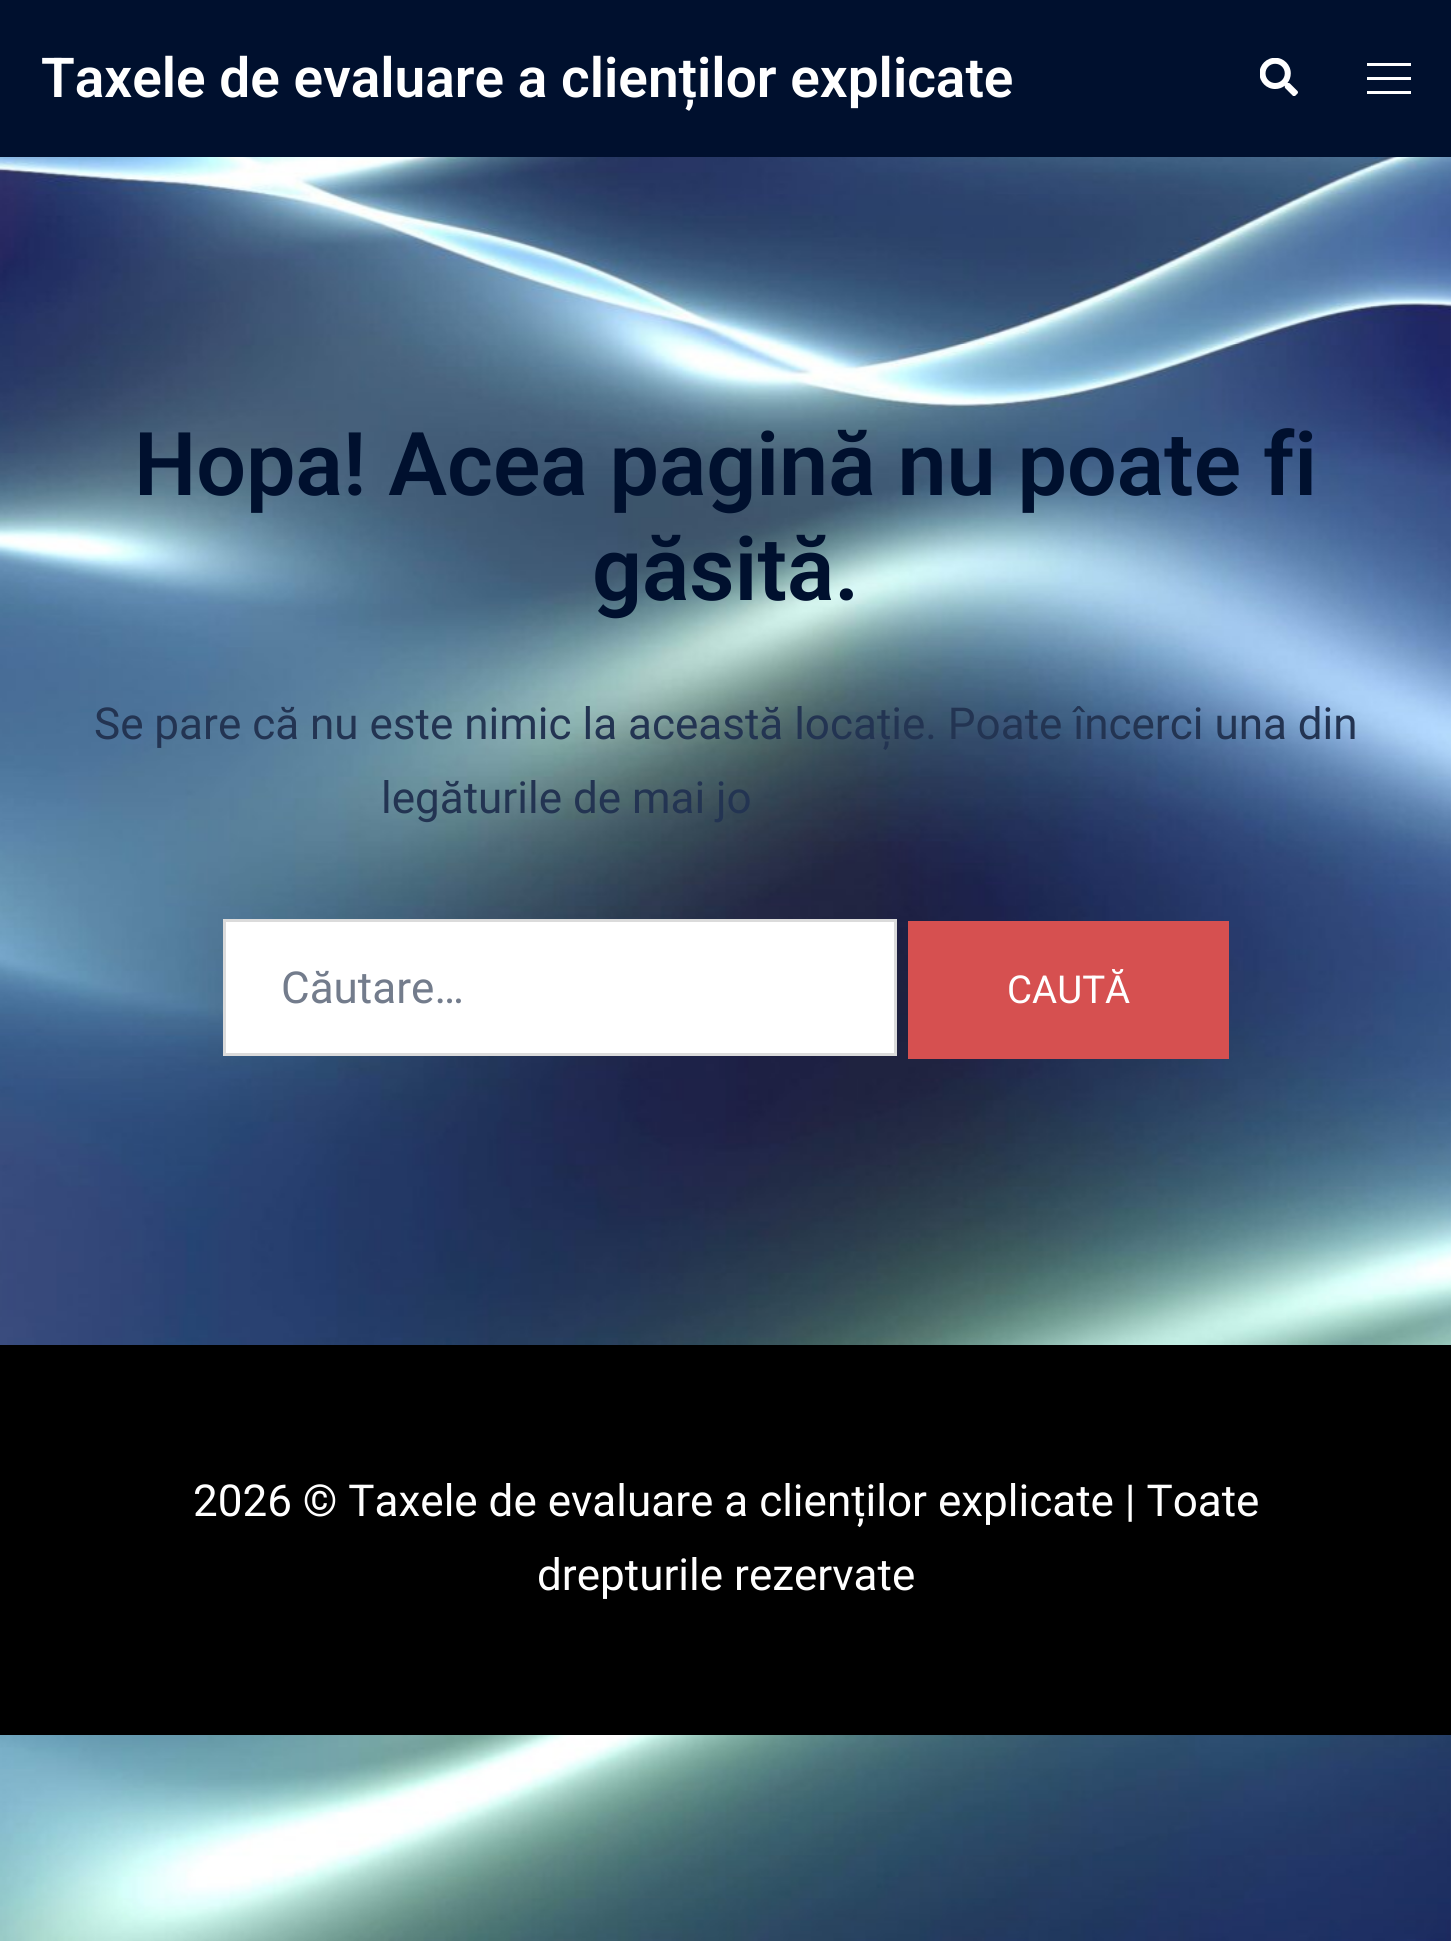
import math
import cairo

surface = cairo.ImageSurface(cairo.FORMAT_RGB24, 1451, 1941)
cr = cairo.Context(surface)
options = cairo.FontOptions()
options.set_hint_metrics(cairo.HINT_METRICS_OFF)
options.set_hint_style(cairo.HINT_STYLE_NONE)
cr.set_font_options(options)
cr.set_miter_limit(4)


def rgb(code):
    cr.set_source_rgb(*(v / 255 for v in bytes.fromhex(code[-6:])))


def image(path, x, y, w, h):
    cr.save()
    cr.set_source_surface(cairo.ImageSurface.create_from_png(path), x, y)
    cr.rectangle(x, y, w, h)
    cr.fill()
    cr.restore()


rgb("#ffffff")
cr.paint()
image("img/1.png", 0, 157, 1451, 1784)
rgb("#00102e")
cr.rectangle(0, 0, 1451, 157)
cr.fill()
image("img/2.png", 1260, 58, 38, 38)
for x, y, w, h, color in [
    (1367, 63, 44, 3, "#ffffff"),
    (1367, 77, 44, 3, "#ffffff"),
    (1367, 91, 44, 3, "#ffffff"),
]:
    rgb(color)
    cr.rectangle(x, y, w, h)
    cr.fill()
cr.rectangle(224.5, 920.5, 671, 134)
cr.fill_preserve()
rgb("#dbdbdb")
cr.set_line_width(3)
cr.stroke()
rgb("#d65050")
cr.rectangle(908, 921, 321, 138)
cr.fill()
rgb("#000000")
cr.rectangle(0, 1345, 1451, 390)
cr.fill()
cr.select_font_face("Roboto SemiBold")
cr.set_font_size(55)
rgb("#ffffff")
cr.move_to(41, 97)
cr.show_text("Taxele de evaluare a clienților explicate")
cr.set_font_size(88)
rgb("#00102e")
cr.move_to(134, 495)
cr.show_text("Hopa! Acea pagină nu poate fi")
cr.move_to(592, 600)
cr.show_text("găsită.")
cr.select_font_face("Roboto")
cr.set_font_size(44)
rgb("#233452")
cr.move_to(94, 739)
cr.show_text("Se pare că nu este nimic la această locație. Poate încerci una din")
cr.move_to(381, 813)
cr.show_text("legăturile de mai jo")
rgb("#737c8c")
cr.move_to(281, 1003)
cr.show_text("Căutare…")
cr.set_font_size(38.5)
rgb("#ffffff")
cr.move_to(1007, 1003)
cr.show_text("CAUTĂ")
cr.set_font_size(44)
cr.move_to(193, 1516)
cr.show_text("2026 © Taxele de evaluare a clienților explicate | Toate")
cr.move_to(537, 1590)
cr.show_text("drepturile rezervate")
surface.write_to_png("page.png")
